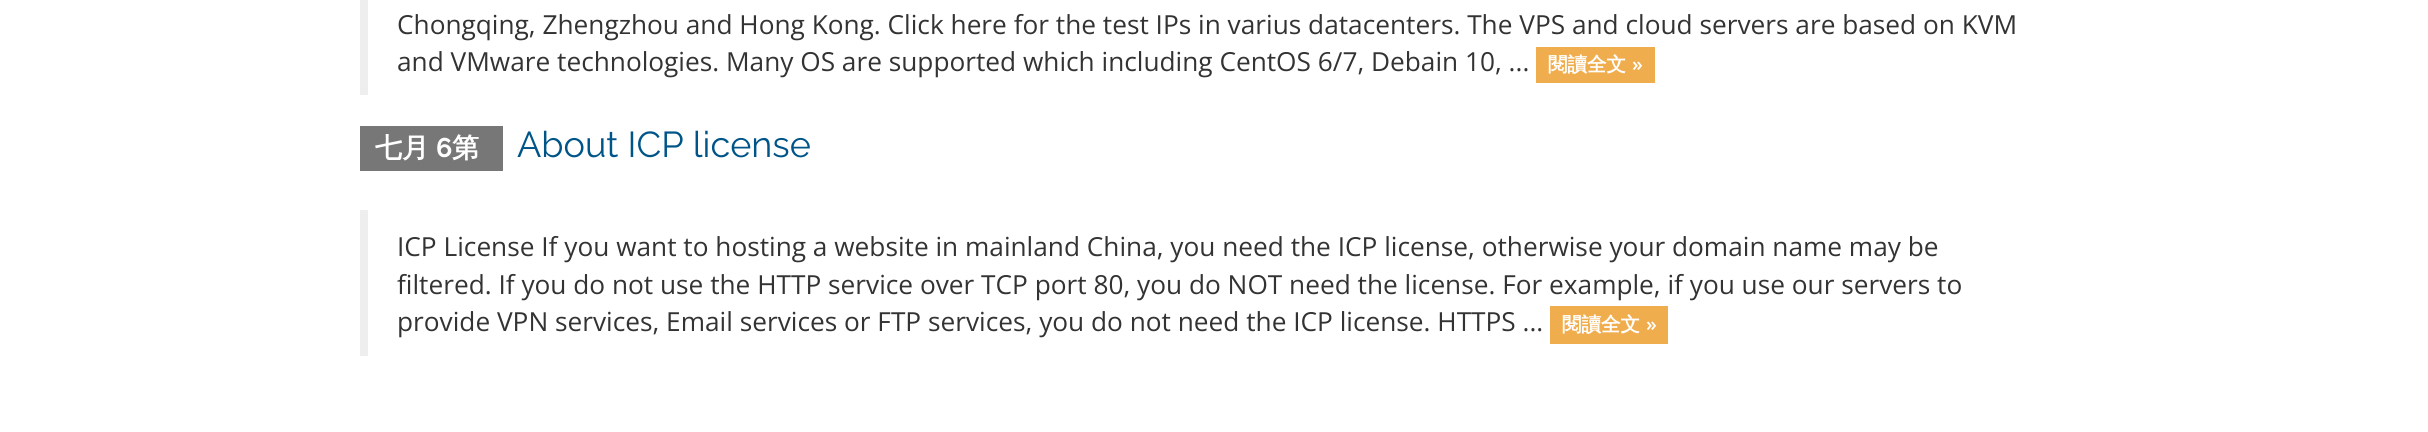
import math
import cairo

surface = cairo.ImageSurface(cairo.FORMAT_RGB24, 2428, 432)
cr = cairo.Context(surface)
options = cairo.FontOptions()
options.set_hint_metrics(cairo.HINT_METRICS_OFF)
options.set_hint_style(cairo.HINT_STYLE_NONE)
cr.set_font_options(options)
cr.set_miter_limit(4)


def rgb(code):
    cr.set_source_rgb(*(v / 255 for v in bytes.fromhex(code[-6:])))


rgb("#ffffff")
cr.paint()
for x, y, w, h, color in [
    (360, 0, 8, 95, "#eeeeee"),
    (1536, 47, 119, 36, "#f0ad4e"),
    (360, 126, 143, 45, "#777777"),
    (360, 210, 8, 146, "#eeeeee"),
    (1550, 306, 118, 38, "#f0ad4e"),
]:
    rgb(color)
    cr.rectangle(x, y, w, h)
    cr.fill()
cr.select_font_face("Open Sans")
cr.set_font_size(26.25)
rgb("#333333")
cr.move_to(397, 34)
cr.show_text("Chongqing, Zhengzhou and Hong Kong. Click here for the test IPs in varius datacenters. The VPS and cloud servers are based on KVM")
cr.move_to(397, 71)
cr.show_text("and VMware technologies. Many OS are supported which including CentOS 6/7, Debain 10, ...")
cr.select_font_face("WenQuanYi Zen Hei", cairo.FONT_SLANT_NORMAL, cairo.FONT_WEIGHT_BOLD)
cr.set_font_size(19.5)
rgb("#ffffff")
cr.move_to(1548, 71)
cr.show_text("閱讀全文")
cr.select_font_face("Open Sans SemiBold")
cr.move_to(1632, 71)
cr.show_text("»")
cr.select_font_face("WenQuanYi Zen Hei", cairo.FONT_SLANT_NORMAL, cairo.FONT_WEIGHT_BOLD)
cr.set_font_size(27)
cr.move_to(375, 157)
cr.show_text("七月")
cr.select_font_face("Raleway", cairo.FONT_SLANT_NORMAL, cairo.FONT_WEIGHT_BOLD)
cr.move_to(436, 157)
cr.show_text("6")
cr.select_font_face("WenQuanYi Zen Hei", cairo.FONT_SLANT_NORMAL, cairo.FONT_WEIGHT_BOLD)
cr.move_to(452, 157)
cr.show_text("第")
cr.select_font_face("Raleway")
cr.set_font_size(36)
rgb("#005588")
cr.move_to(517, 157)
cr.show_text("About ICP license")
cr.select_font_face("Open Sans")
cr.set_font_size(26.25)
rgb("#333333")
for x, y, s in [
    (397, 256, "ICP License If you want to hosting a website in mainland China, you need the ICP license, otherwise your domain name may be"),
    (397, 294, "filtered. If you do not use the HTTP service over TCP port 80, you do NOT need the license. For example, if you use our servers to"),
    (397, 331, "provide VPN services, Email services or FTP services, you do not need the ICP license. HTTPS ..."),
]:
    cr.move_to(x, y)
    cr.show_text(s)
cr.select_font_face("WenQuanYi Zen Hei", cairo.FONT_SLANT_NORMAL, cairo.FONT_WEIGHT_BOLD)
cr.set_font_size(19.5)
rgb("#ffffff")
cr.move_to(1562, 331)
cr.show_text("閱讀全文")
cr.select_font_face("Open Sans SemiBold")
cr.move_to(1646, 331)
cr.show_text("»")
surface.write_to_png("page.png")
